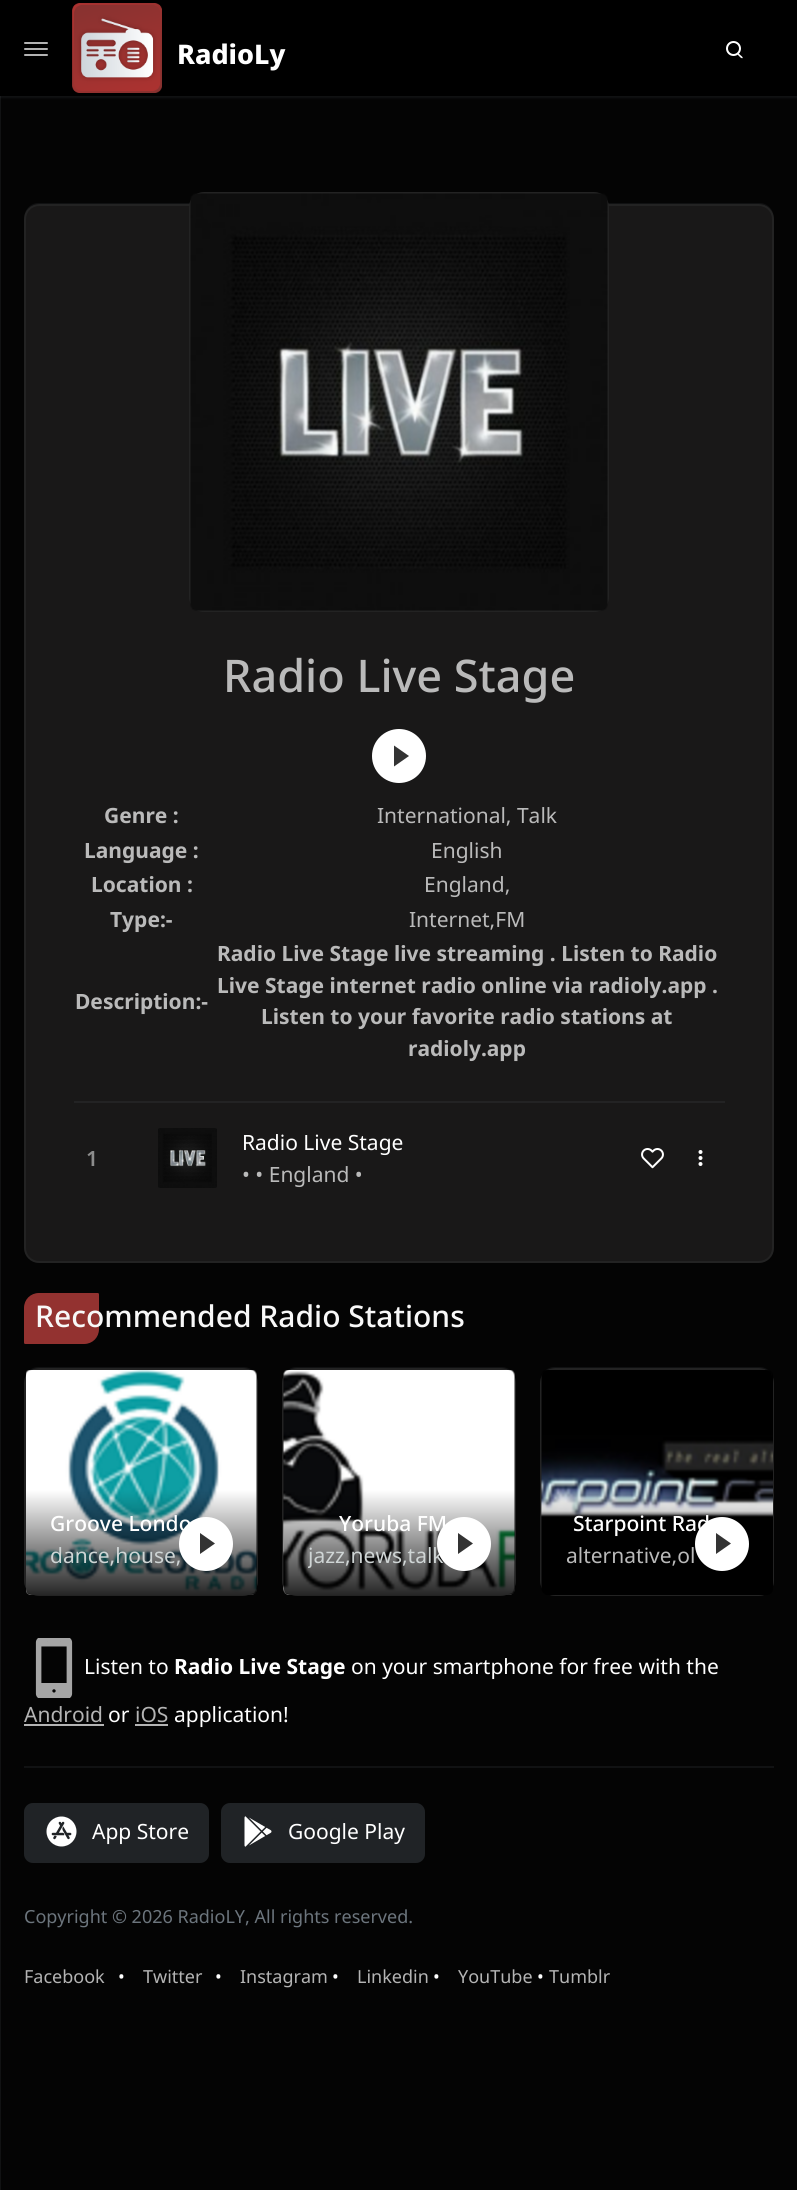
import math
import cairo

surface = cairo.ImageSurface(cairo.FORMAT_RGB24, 797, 2190)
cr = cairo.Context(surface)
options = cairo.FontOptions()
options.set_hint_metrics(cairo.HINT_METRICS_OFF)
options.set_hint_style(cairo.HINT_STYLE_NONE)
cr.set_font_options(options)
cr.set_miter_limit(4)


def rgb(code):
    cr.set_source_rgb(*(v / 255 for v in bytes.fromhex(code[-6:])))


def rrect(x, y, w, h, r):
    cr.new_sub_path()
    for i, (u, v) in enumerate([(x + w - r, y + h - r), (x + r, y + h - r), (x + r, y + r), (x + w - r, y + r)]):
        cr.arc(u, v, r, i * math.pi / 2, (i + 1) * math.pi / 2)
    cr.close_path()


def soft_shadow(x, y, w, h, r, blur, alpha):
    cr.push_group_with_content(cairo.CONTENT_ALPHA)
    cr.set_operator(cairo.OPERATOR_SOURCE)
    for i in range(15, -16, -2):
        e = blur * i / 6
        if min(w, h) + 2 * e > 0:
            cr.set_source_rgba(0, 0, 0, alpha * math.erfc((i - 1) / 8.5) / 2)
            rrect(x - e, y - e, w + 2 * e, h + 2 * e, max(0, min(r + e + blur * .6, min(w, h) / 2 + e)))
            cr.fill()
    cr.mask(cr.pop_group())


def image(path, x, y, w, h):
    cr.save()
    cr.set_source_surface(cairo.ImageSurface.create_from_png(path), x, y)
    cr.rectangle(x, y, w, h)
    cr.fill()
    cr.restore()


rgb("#040404")
cr.paint()
rgb("#111213")
cr.rectangle(0, 96, 1, 2094)
cr.fill()
rgb("#828c96")
soft_shadow(0, 2, 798, 96, 0, 1, 0.1)
rgb("#000000")
cr.rectangle(0, 0, 797, 96)
cr.fill()
rgb("#b3b3b3")
rrect(24, 42, 24, 2, 1)
cr.fill()
rrect(24, 48, 24, 2, 1)
cr.fill()
rrect(24, 54, 24, 2, 1)
cr.fill()
image("img/1.png", 72, 3, 90, 90)
cr.arc(733.5, 48.5, 6.5, 0, 2 * math.pi)
rgb("#ffffff")
cr.stroke()
cr.new_path()
cr.move_to(738, 53)
cr.line_to(742, 56.5)
cr.curve_to(743.5, 58, 742.5, 59, 740.5, 57.5)
cr.curve_to(740, 57, 736, 53.5, 737.5, 53)
cr.close_path()
cr.fill()
rgb("#101112")
cr.new_path()
cr.move_to(39, 203)
cr.curve_to(30, 203, 24, 210, 24, 219)
cr.curve_to(24, 211, 31, 204, 39, 204)
cr.line_to(759, 204)
cr.curve_to(767, 204, 774, 211, 774, 219)
cr.curve_to(774, 210, 768, 203, 759, 203)
cr.close_path()
cr.fill()
rgb("#191818")
rrect(25, 205, 748, 1057, 14)
cr.fill_preserve()
rgb("#232323")
cr.stroke()
rrect(190, 193, 418, 418, 14)
cr.stroke()
image("img/2.png", 190, 193, 418, 418)
rgb("#ffffff")
cr.arc(399, 756, 27, 0, 2 * math.pi)
cr.fill()
rgb("#333333")
cr.new_path()
cr.move_to(394, 766.5)
cr.line_to(394, 745.5)
cr.line_to(409, 756)
cr.close_path()
cr.fill()
rgb("#232324")
cr.rectangle(74, 1101, 651, 2)
cr.fill()
image("img/3.png", 158, 1128, 59, 60)
image("img/4.png", 641, 1148, 23, 21)
rgb("#ffffff")
cr.arc(700.5, 1158, 2, 0, 2 * math.pi)
cr.fill()
cr.arc(700.5, 1152, 2, 0, 2 * math.pi)
cr.fill()
cr.arc(700.5, 1164, 2, 0, 2 * math.pi)
cr.fill()
rgb("#933230")
cr.new_path()
cr.move_to(39, 1293)
cr.line_to(97.5, 1293)
cr.curve_to(98.5, 1293, 99, 1293.5, 99, 1294.5)
cr.line_to(99, 1329)
cr.curve_to(99, 1337.5, 92.5, 1344, 84, 1344)
cr.line_to(25.5, 1344)
cr.curve_to(24.5, 1344, 24, 1343.5, 24, 1342.5)
cr.line_to(24, 1308)
cr.curve_to(24, 1299.5, 30.5, 1293, 39, 1293)
cr.close_path()
cr.fill()
rgb("#101112")
cr.new_path()
cr.move_to(39, 1367)
cr.curve_to(30, 1367, 24, 1374, 24, 1383)
cr.curve_to(24, 1375, 31, 1368, 39, 1368)
cr.line_to(243, 1368)
cr.curve_to(251, 1368, 258, 1375, 258, 1383)
cr.curve_to(258, 1374, 252, 1367, 243, 1367)
cr.close_path()
cr.fill()
rrect(25, 1369, 232, 226, 14)
rgb("#232323")
cr.stroke()
image("img/5.png", 26, 1370, 231, 225)
gradient = cairo.LinearGradient(141, 1490, 141, 1595)
gradient.add_color_stop_rgba(0, 0, 0, 0, 0)
gradient.add_color_stop_rgba(1, 0, 0, 0, 0.85)
cr.set_source(gradient)
cr.new_path()
cr.move_to(26, 1490)
cr.line_to(257, 1490)
cr.line_to(257, 1589)
cr.curve_to(257, 1592.5, 254.5, 1595, 251, 1595)
cr.line_to(32, 1595)
cr.curve_to(28.5, 1595, 26, 1592.5, 26, 1589)
cr.close_path()
cr.fill()
rgb("#101112")
cr.new_path()
cr.move_to(297, 1367)
cr.curve_to(288, 1367, 282, 1374, 282, 1383)
cr.curve_to(282, 1375, 289, 1368, 297, 1368)
cr.line_to(501, 1368)
cr.curve_to(509, 1368, 516, 1375, 516, 1383)
cr.curve_to(516, 1374, 510, 1367, 501, 1367)
cr.close_path()
cr.fill()
rrect(283, 1369, 232, 226, 14)
rgb("#232323")
cr.stroke()
image("img/6.png", 283, 1370, 232, 225)
gradient = cairo.LinearGradient(399, 1490, 399, 1595)
gradient.add_color_stop_rgba(0, 0, 0, 0, 0)
gradient.add_color_stop_rgba(1, 0, 0, 0, 0.85)
cr.set_source(gradient)
cr.new_path()
cr.move_to(284, 1490)
cr.line_to(515, 1490)
cr.line_to(515, 1589)
cr.curve_to(515, 1592.5, 512.5, 1595, 509, 1595)
cr.line_to(290, 1595)
cr.curve_to(286.5, 1595, 284, 1592.5, 284, 1589)
cr.close_path()
cr.fill()
rgb("#101112")
cr.new_path()
cr.move_to(555, 1367)
cr.curve_to(546, 1367, 540, 1374, 540, 1383)
cr.curve_to(540, 1375, 547, 1368, 555, 1368)
cr.line_to(759, 1368)
cr.curve_to(767, 1368, 774, 1375, 774, 1383)
cr.curve_to(774, 1374, 768, 1367, 759, 1367)
cr.close_path()
cr.fill()
rrect(541, 1369, 232, 226, 14)
rgb("#232323")
cr.stroke()
image("img/7.png", 541, 1370, 232, 225)
gradient = cairo.LinearGradient(657, 1490, 657, 1595)
gradient.add_color_stop_rgba(0, 0, 0, 0, 0)
gradient.add_color_stop_rgba(1, 0, 0, 0, 0.85)
cr.set_source(gradient)
cr.new_path()
cr.move_to(542, 1490)
cr.line_to(773, 1490)
cr.line_to(773, 1589)
cr.curve_to(773, 1592.5, 770.5, 1595, 767, 1595)
cr.line_to(548, 1595)
cr.curve_to(544.5, 1595, 542, 1592.5, 542, 1589)
cr.close_path()
cr.fill()
rgb("#ffffff")
cr.arc(722, 1544, 27, 0, 2 * math.pi)
cr.fill()
rgb("#333333")
cr.new_path()
cr.move_to(716, 1554)
cr.line_to(716, 1533)
cr.line_to(731, 1543.5)
cr.close_path()
cr.fill()
image("img/8.png", 35, 1638, 38, 60)
for x, y, w, h, color in [
    (24, 1724, 80, 2, "#b4b4b4"),
    (135, 1724, 33, 2, "#b4b4b4"),
    (24, 1766, 750, 2, "#111213"),
]:
    rgb(color)
    cr.rectangle(x, y, w, h)
    cr.fill()
rgb("#202326")
rrect(24, 1803, 185, 60, 9)
cr.fill()
image("img/9.png", 46, 1816, 31, 31)
rrect(221, 1803, 204, 60, 9)
cr.fill()
image("img/10.png", 244, 1816, 28, 31)
cr.select_font_face("Noto Sans ExtraBold")
cr.set_font_size(27)
rgb("#ffffff")
cr.move_to(177, 64)
cr.show_text("RadioLy")
cr.select_font_face("Noto Sans Medium")
cr.set_font_size(45)
rgb("#bababa")
cr.move_to(223, 692)
cr.show_text("Radio Live Stage")
cr.select_font_face("Noto Sans", cairo.FONT_SLANT_NORMAL, cairo.FONT_WEIGHT_BOLD)
cr.set_font_size(21)
cr.move_to(104, 823)
cr.show_text("Genre :")
cr.select_font_face("Noto Sans")
cr.move_to(377, 823)
cr.show_text("International, Talk")
cr.select_font_face("Noto Sans", cairo.FONT_SLANT_NORMAL, cairo.FONT_WEIGHT_BOLD)
cr.move_to(84, 858)
cr.show_text("Language :")
cr.select_font_face("Noto Sans")
cr.move_to(431, 858)
cr.show_text("English")
cr.select_font_face("Noto Sans", cairo.FONT_SLANT_NORMAL, cairo.FONT_WEIGHT_BOLD)
cr.move_to(91, 892)
cr.show_text("Location :")
cr.select_font_face("Noto Sans")
cr.move_to(424, 892)
cr.show_text("England,")
cr.select_font_face("Noto Sans", cairo.FONT_SLANT_NORMAL, cairo.FONT_WEIGHT_BOLD)
cr.move_to(110, 927)
cr.show_text("Type:-")
cr.select_font_face("Noto Sans")
cr.move_to(409, 927)
cr.show_text("Internet,FM")
cr.select_font_face("Noto Sans", cairo.FONT_SLANT_NORMAL, cairo.FONT_WEIGHT_BOLD)
for x, y, s in [
    (75, 1009, "Description:-"),
    (217, 961, "Radio Live Stage live streaming . Listen to Radio"),
    (217, 993, "Live Stage internet radio online via radioly.app ."),
    (261, 1024, "Listen to your favorite radio stations at"),
    (408, 1056, "radioly.app"),
]:
    cr.move_to(x, y)
    cr.show_text(s)
cr.select_font_face("Noto Sans SemiBold")
rgb("#8c8c8c")
cr.move_to(86, 1166)
cr.show_text("1")
cr.select_font_face("Noto Sans")
rgb("#ffffff")
cr.move_to(242, 1150)
cr.show_text("Radio Live Stage")
rgb("#bababa")
cr.move_to(242, 1182)
cr.show_text("• • England •")
cr.select_font_face("Noto Sans Medium")
cr.set_font_size(30)
rgb("#f8f8f8")
cr.move_to(35, 1327)
cr.show_text("Recommended Radio Stations")
cr.set_font_size(21)
rgb("#ffffff")
cr.move_to(50, 1531)
cr.show_text("Groove Londo")
cr.select_font_face("Noto Sans")
rgb("#cfd5d5")
cr.move_to(50, 1563)
cr.show_text("dance,house,")
rgb("#ffffff")
cr.new_path()
cr.arc(206, 1544, 27, 0, 2 * math.pi)
cr.fill()
rgb("#333333")
cr.new_path()
cr.move_to(200, 1554)
cr.line_to(200, 1533)
cr.line_to(215, 1543.5)
cr.close_path()
cr.fill()
cr.select_font_face("Noto Sans Medium")
rgb("#ffffff")
cr.move_to(339, 1531)
cr.show_text("Yoruba FM")
cr.save()
cr.rectangle(308, 1539, 171, 32)
cr.clip()
cr.select_font_face("Noto Sans")
rgb("#cfd5d5")
cr.move_to(308, 1563)
cr.show_text("jazz,news,talk")
cr.restore()
cr.new_path()
cr.arc(464, 1544, 27, 0, 2 * math.pi)
cr.fill()
rgb("#333333")
cr.new_path()
cr.move_to(458, 1554)
cr.line_to(458, 1533)
cr.line_to(473, 1543.5)
cr.close_path()
cr.fill()
rgb("#ffffff")
cr.move_to(573, 1531)
cr.show_text("Starpoint Rad")
cr.select_font_face("Noto Sans")
rgb("#bababa")
cr.move_to(566, 1563)
cr.show_text("alternative,ol")
rgb("#ffffff")
cr.move_to(84, 1674)
cr.show_text("Listen to")
cr.select_font_face("Noto Sans", cairo.FONT_SLANT_NORMAL, cairo.FONT_WEIGHT_BOLD)
cr.move_to(174, 1674)
cr.show_text("Radio Live Stage")
cr.select_font_face("Noto Sans")
cr.move_to(351, 1674)
cr.show_text("on your smartphone for free with the")
rgb("#b4b4b4")
cr.move_to(24, 1722)
cr.show_text("Android")
rgb("#ffffff")
cr.move_to(108, 1722)
cr.show_text("or")
rgb("#b4b4b4")
cr.move_to(135, 1722)
cr.show_text("iOS")
rgb("#ffffff")
for x, y, s in [
    (174, 1722, "application!"),
    (92, 1839, "App Store"),
    (288, 1839, "Google Play"),
]:
    cr.move_to(x, y)
    cr.show_text(s)
cr.set_font_size(18)
rgb("#6c757d")
cr.move_to(24, 1923)
cr.show_text("Copyright © 2026 RadioLY, All rights reserved.")
rgb("#b4b4b4")
cr.move_to(24, 1983)
cr.show_text("Facebook")
rgb("#ffffff")
cr.move_to(118, 1983)
cr.show_text("•")
rgb("#b4b4b4")
cr.move_to(143, 1983)
cr.show_text("Twitter")
rgb("#ffffff")
cr.move_to(215, 1983)
cr.show_text("•")
rgb("#b4b4b4")
cr.move_to(240, 1983)
cr.show_text("Instagram")
rgb("#ffffff")
cr.move_to(332, 1983)
cr.show_text("•")
rgb("#b4b4b4")
cr.move_to(357, 1983)
cr.show_text("Linkedin")
rgb("#ffffff")
cr.move_to(433, 1983)
cr.show_text("•")
rgb("#b4b4b4")
cr.move_to(458, 1983)
cr.show_text("YouTube")
rgb("#ffffff")
cr.move_to(537, 1983)
cr.show_text("•")
rgb("#b4b4b4")
cr.move_to(549, 1983)
cr.show_text("Tumblr")
surface.write_to_png("page.png")
